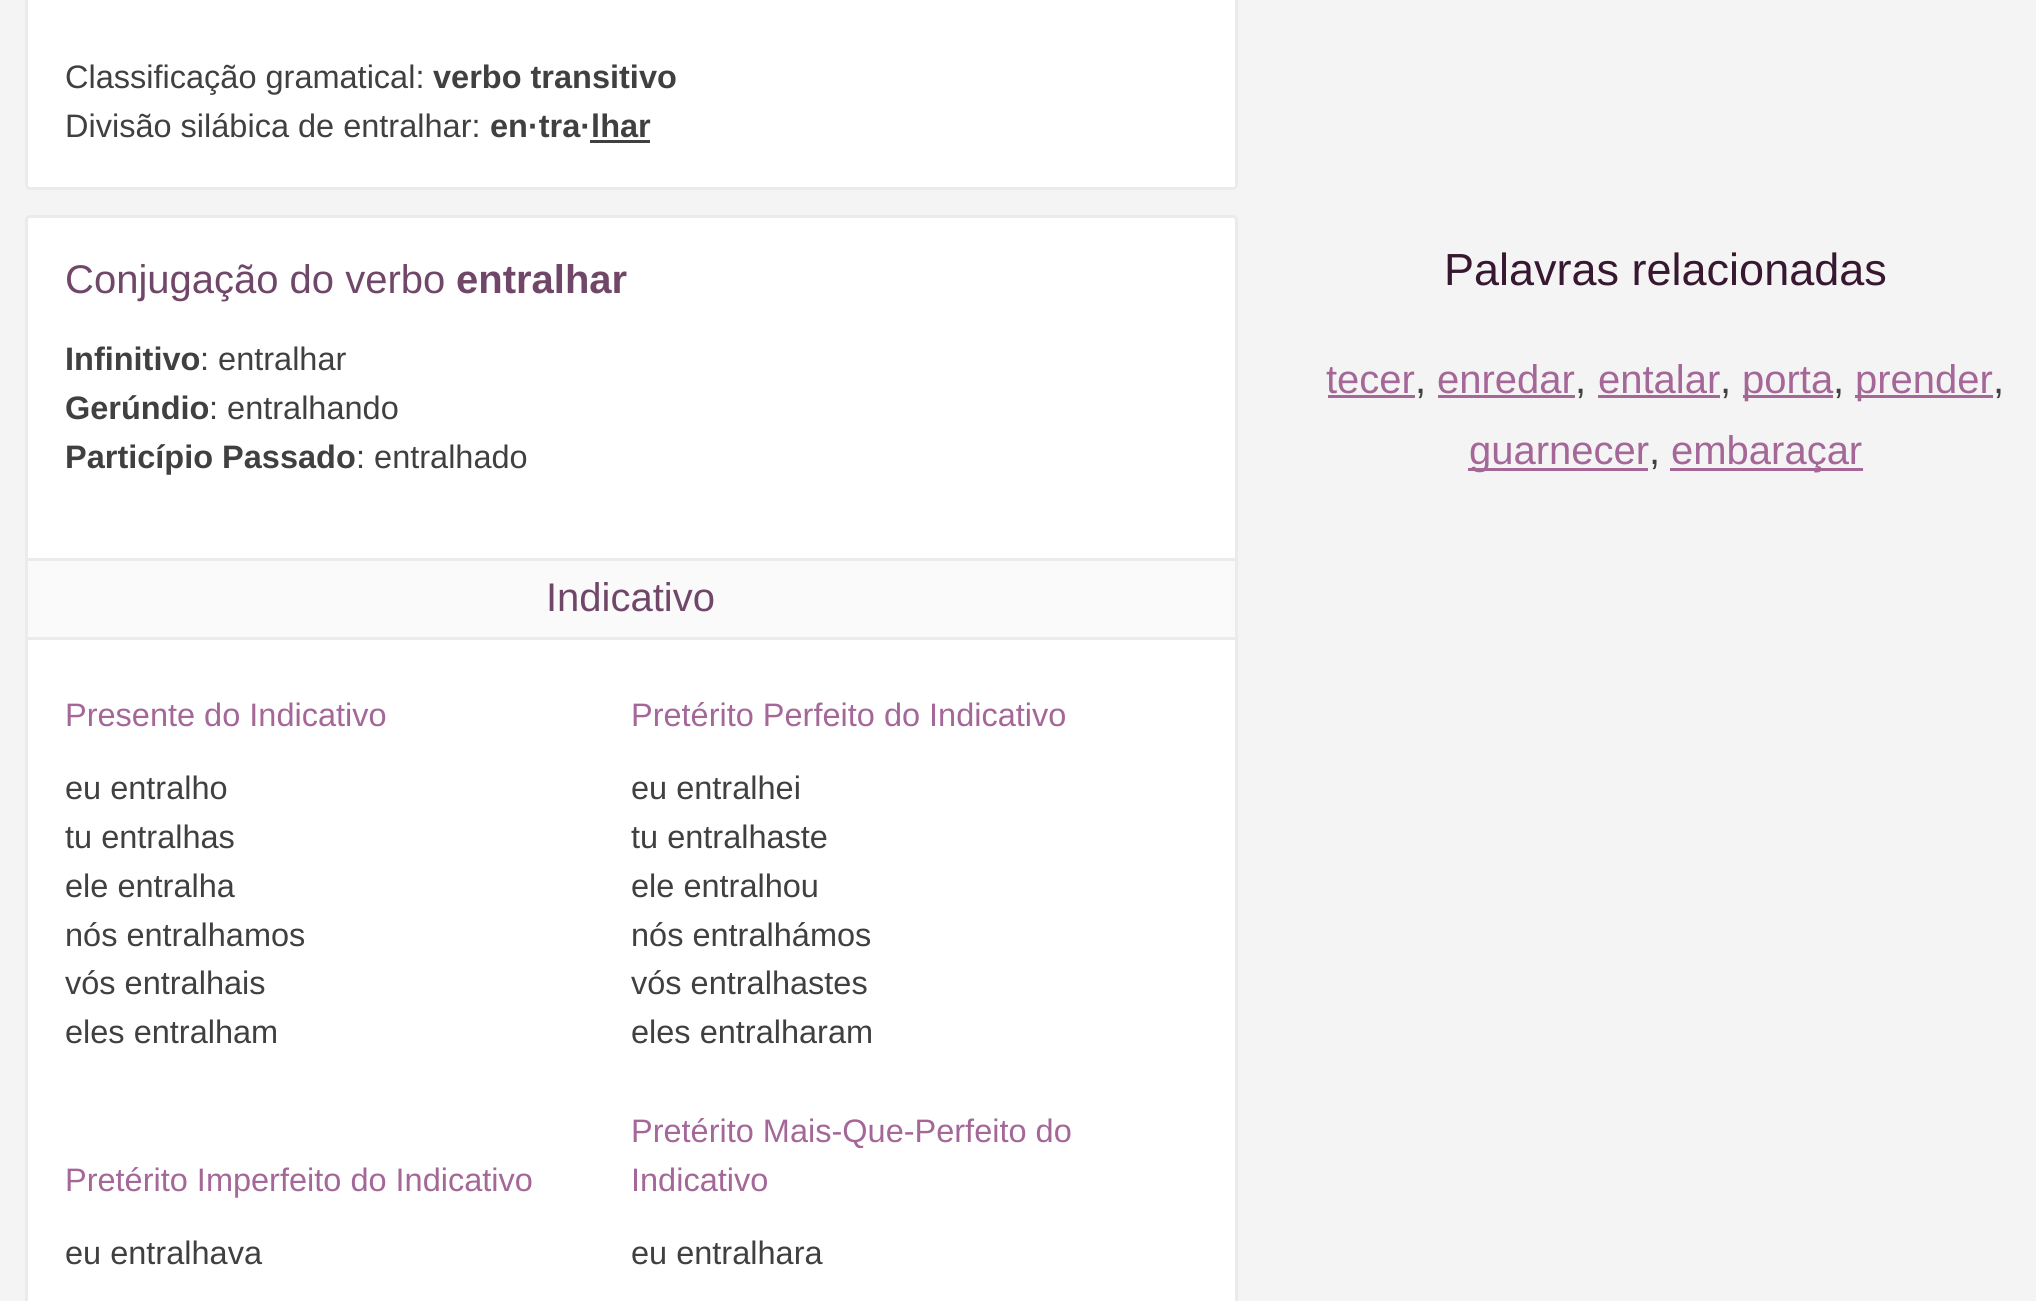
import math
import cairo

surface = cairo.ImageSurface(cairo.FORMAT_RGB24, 2036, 1301)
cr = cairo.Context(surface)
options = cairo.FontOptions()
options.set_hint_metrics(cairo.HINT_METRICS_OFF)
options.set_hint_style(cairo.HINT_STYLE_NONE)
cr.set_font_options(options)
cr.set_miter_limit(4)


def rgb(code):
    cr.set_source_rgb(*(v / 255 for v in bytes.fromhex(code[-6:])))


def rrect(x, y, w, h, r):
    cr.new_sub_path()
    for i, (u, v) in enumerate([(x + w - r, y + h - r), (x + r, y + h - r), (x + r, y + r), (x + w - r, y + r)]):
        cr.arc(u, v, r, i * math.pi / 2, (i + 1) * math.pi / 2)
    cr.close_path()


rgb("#f4f4f4")
cr.paint()
rgb("#ffffff")
rrect(26.5, -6.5, 1210, 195, 3.5)
cr.fill_preserve()
rgb("#ebebeb")
cr.set_line_width(3)
cr.stroke()
rgb("#404040")
cr.rectangle(590, 140, 60, 3)
cr.fill()
rgb("#ffffff")
rrect(26.5, 216.5, 1210, 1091, 3.5)
cr.fill_preserve()
rgb("#ebebeb")
cr.stroke()
rgb("#fafafa")
cr.rectangle(26.5, 559.5, 1210, 79)
cr.fill_preserve()
rgb("#ebebeb")
cr.stroke()
for x, y, w, h, color in [
    (1328, 395, 87, 3, "#a46798"),
    (1438, 395, 137, 3, "#a46798"),
    (1598, 395, 122, 3, "#a46798"),
    (1743, 395, 90, 3, "#a46798"),
    (1855, 395, 138, 3, "#a46798"),
    (1468, 468, 180, 3, "#a46798"),
    (1670, 468, 193, 3, "#a46798"),
]:
    rgb(color)
    cr.rectangle(x, y, w, h)
    cr.fill()
cr.select_font_face("Liberation Sans")
cr.set_font_size(32.5)
rgb("#404040")
cr.move_to(65, 88)
cr.show_text("Classificação gramatical:")
cr.select_font_face("Liberation Sans", cairo.FONT_SLANT_NORMAL, cairo.FONT_WEIGHT_BOLD)
cr.move_to(433, 88)
cr.show_text("verbo transitivo")
cr.select_font_face("Liberation Sans")
cr.move_to(65, 137)
cr.show_text("Divisão silábica de entralhar:")
cr.select_font_face("Liberation Sans", cairo.FONT_SLANT_NORMAL, cairo.FONT_WEIGHT_BOLD)
cr.move_to(490, 137)
cr.show_text("en·tra·lhar")
cr.select_font_face("Liberation Sans")
cr.set_font_size(40)
rgb("#714769")
cr.move_to(65, 293)
cr.show_text("Conjugação do verbo")
cr.select_font_face("Liberation Sans", cairo.FONT_SLANT_NORMAL, cairo.FONT_WEIGHT_BOLD)
cr.move_to(456, 293)
cr.show_text("entralhar")
cr.set_font_size(32.5)
rgb("#404040")
cr.move_to(65, 370)
cr.show_text("Infinitivo")
cr.select_font_face("Liberation Sans")
cr.move_to(200, 370)
cr.show_text(": entralhar")
cr.select_font_face("Liberation Sans", cairo.FONT_SLANT_NORMAL, cairo.FONT_WEIGHT_BOLD)
cr.move_to(65, 419)
cr.show_text("Gerúndio")
cr.select_font_face("Liberation Sans")
cr.move_to(209, 419)
cr.show_text(": entralhando")
cr.select_font_face("Liberation Sans", cairo.FONT_SLANT_NORMAL, cairo.FONT_WEIGHT_BOLD)
cr.move_to(65, 468)
cr.show_text("Particípio Passado")
cr.select_font_face("Liberation Sans")
cr.move_to(356, 468)
cr.show_text(": entralhado")
cr.set_font_size(40)
rgb("#714769")
cr.move_to(546, 611)
cr.show_text("Indicativo")
cr.set_font_size(32.5)
rgb("#a46798")
cr.move_to(65, 726)
cr.show_text("Presente do Indicativo")
rgb("#404040")
for x, y, s in [
    (65, 799, "eu entralho"),
    (65, 848, "tu entralhas"),
    (65, 897, "ele entralha"),
    (65, 946, "nós entralhamos"),
    (65, 994, "vós entralhais"),
    (65, 1043, "eles entralham"),
]:
    cr.move_to(x, y)
    cr.show_text(s)
rgb("#a46798")
cr.move_to(631, 726)
cr.show_text("Pretérito Perfeito do Indicativo")
rgb("#404040")
for x, y, s in [
    (631, 799, "eu entralhei"),
    (631, 848, "tu entralhaste"),
    (631, 897, "ele entralhou"),
    (631, 946, "nós entralhámos"),
    (631, 994, "vós entralhastes"),
    (631, 1043, "eles entralharam"),
]:
    cr.move_to(x, y)
    cr.show_text(s)
rgb("#a46798")
cr.move_to(65, 1191)
cr.show_text("Pretérito Imperfeito do Indicativo")
rgb("#404040")
cr.move_to(65, 1264)
cr.show_text("eu entralhava")
rgb("#a46798")
cr.move_to(631, 1142)
cr.show_text("Pretérito Mais-Que-Perfeito do")
cr.move_to(631, 1191)
cr.show_text("Indicativo")
rgb("#404040")
cr.move_to(631, 1264)
cr.show_text("eu entralhara")
cr.set_font_size(45)
rgb("#381731")
cr.move_to(1444, 285)
cr.show_text("Palavras relacionadas")
cr.set_font_size(40)
rgb("#a46798")
cr.move_to(1326, 393)
cr.show_text("tecer")
rgb("#404040")
cr.move_to(1415, 393)
cr.show_text(",")
rgb("#a46798")
cr.move_to(1437, 393)
cr.show_text("enredar")
rgb("#404040")
cr.move_to(1575, 393)
cr.show_text(",")
rgb("#a46798")
cr.move_to(1598, 393)
cr.show_text("entalar")
rgb("#404040")
cr.move_to(1720, 393)
cr.show_text(",")
rgb("#a46798")
cr.move_to(1742, 393)
cr.show_text("porta")
rgb("#404040")
cr.move_to(1833, 393)
cr.show_text(",")
rgb("#a46798")
cr.move_to(1855, 393)
cr.show_text("prender")
rgb("#404040")
cr.move_to(1993, 393)
cr.show_text(",")
rgb("#a46798")
cr.move_to(1469, 464)
cr.show_text("guarnecer")
rgb("#404040")
cr.move_to(1649, 464)
cr.show_text(",")
rgb("#a46798")
cr.move_to(1671, 464)
cr.show_text("embaraçar")
surface.write_to_png("page.png")
